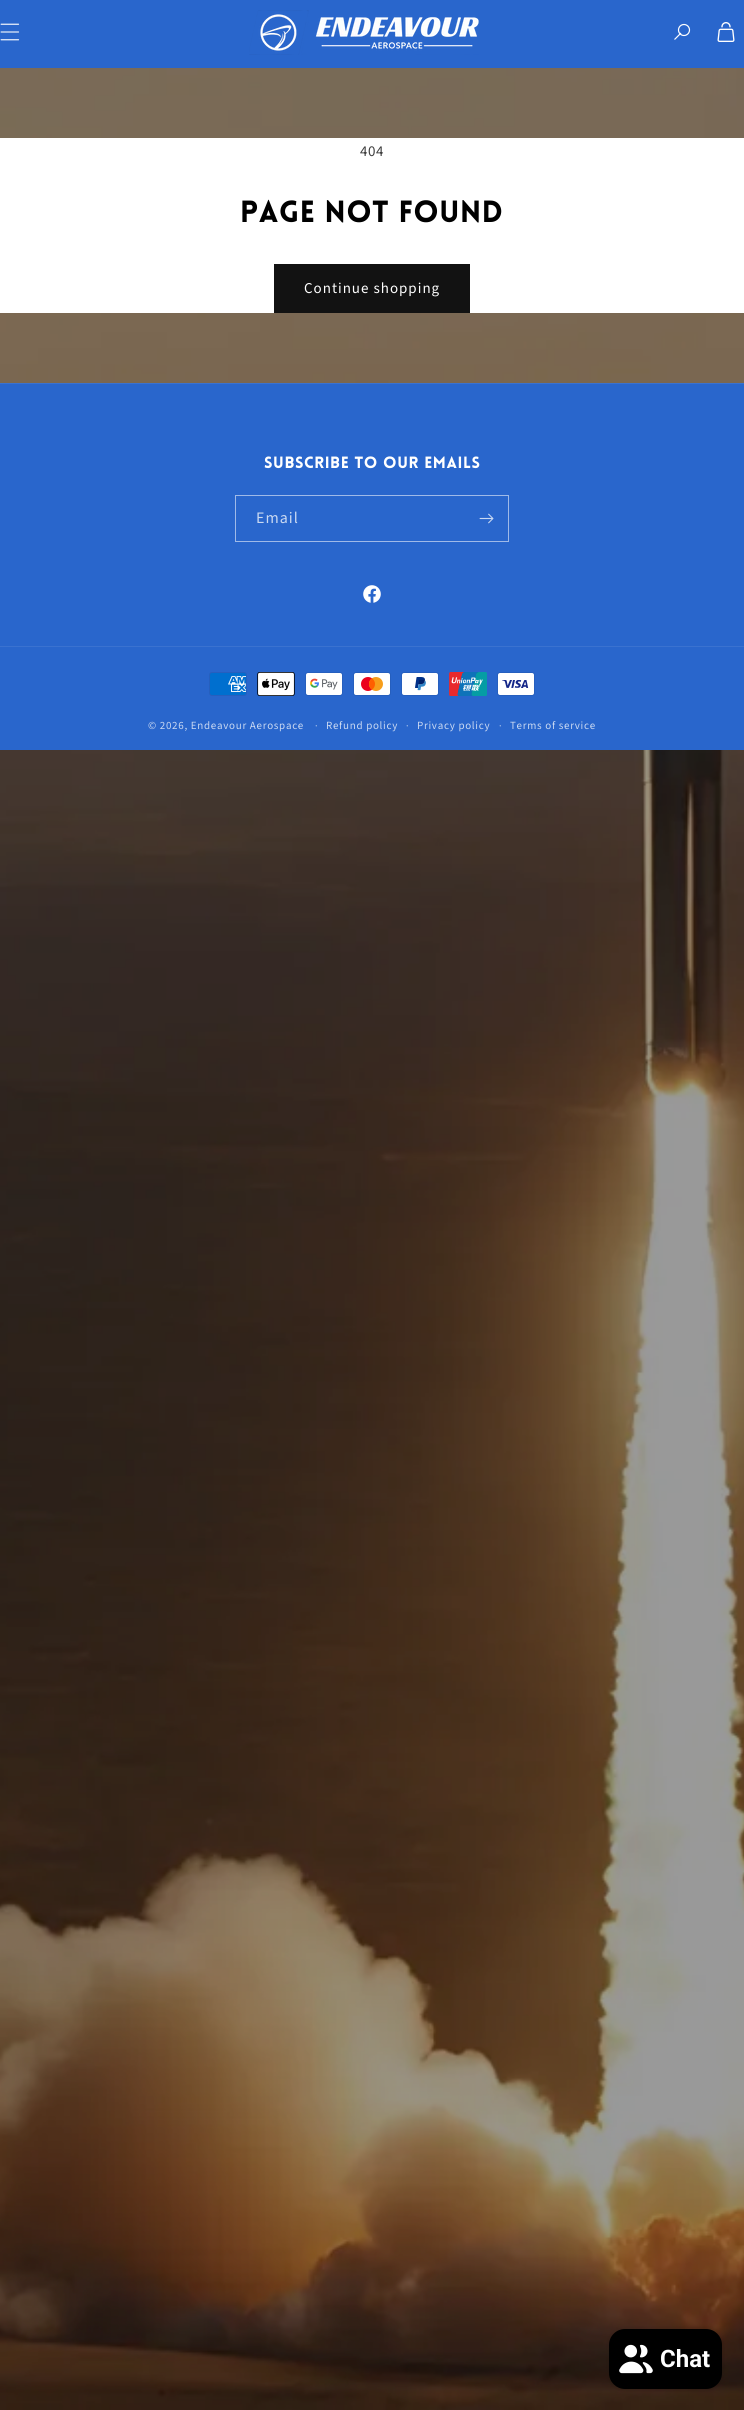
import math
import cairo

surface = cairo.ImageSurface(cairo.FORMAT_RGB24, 744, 2410)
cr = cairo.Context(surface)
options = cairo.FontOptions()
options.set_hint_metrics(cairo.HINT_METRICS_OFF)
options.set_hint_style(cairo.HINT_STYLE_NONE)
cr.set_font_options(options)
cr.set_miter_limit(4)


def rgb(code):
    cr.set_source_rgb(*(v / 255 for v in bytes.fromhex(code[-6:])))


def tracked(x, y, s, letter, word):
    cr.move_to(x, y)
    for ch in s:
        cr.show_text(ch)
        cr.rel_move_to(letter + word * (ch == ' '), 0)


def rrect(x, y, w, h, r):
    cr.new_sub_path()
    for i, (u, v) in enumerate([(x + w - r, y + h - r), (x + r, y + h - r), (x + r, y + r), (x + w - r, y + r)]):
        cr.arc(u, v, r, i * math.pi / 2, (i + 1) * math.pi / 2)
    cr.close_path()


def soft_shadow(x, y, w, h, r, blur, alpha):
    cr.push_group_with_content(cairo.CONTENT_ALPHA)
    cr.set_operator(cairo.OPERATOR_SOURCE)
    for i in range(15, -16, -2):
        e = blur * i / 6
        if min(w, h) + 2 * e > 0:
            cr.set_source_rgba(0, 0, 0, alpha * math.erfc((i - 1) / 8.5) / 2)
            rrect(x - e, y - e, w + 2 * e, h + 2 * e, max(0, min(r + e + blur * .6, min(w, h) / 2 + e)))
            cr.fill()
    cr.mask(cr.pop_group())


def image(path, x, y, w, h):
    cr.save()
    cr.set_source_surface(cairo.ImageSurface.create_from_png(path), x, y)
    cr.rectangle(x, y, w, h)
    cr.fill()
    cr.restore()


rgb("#ffffff")
cr.paint()
image("img/1.png", 0, 68, 744, 2342)
rgb("#2966cc")
cr.rectangle(0, 0, 744, 68)
cr.fill()
image("img/2.png", 0, 23, 20, 18)
image("img/3.png", 249, 10, 230, 45)
cr.arc(684, 30, 5.5, 0, 2 * math.pi)
rgb("#ffffff")
cr.set_line_width(1.2)
cr.stroke()
cr.new_path()
cr.move_to(674.5, 39.5)
cr.line_to(681, 33)
cr.stroke()
image("img/4.png", 717, 22, 18, 20)
for x, y, w, h, color in [
    (0, 138, 744, 175, "#ffffff"),
    (274, 264, 196, 49, "#121212"),
    (0, 384, 744, 366, "#2966cc"),
    (0, 383, 744, 1, "#3a72d0"),
]:
    rgb(color)
    cr.rectangle(x, y, w, h)
    cr.fill()
cr.rectangle(235.5, 495.5, 273, 46)
rgb("#9fbae8")
cr.set_line_width(1)
cr.stroke()
image("img/5.png", 479, 513, 15, 11)
image("img/6.png", 363, 585, 18, 18)
rgb("#3a72d0")
cr.rectangle(0, 646, 744, 1)
cr.fill()
image("img/7.png", 209, 672, 38, 24)
image("img/8.png", 257, 672, 38, 24)
image("img/9.png", 305, 672, 38, 24)
image("img/10.png", 353, 672, 38, 24)
image("img/11.png", 401, 672, 38, 24)
image("img/12.png", 449, 672, 38, 24)
image("img/13.png", 497, 672, 38, 24)
rgb("#000000")
soft_shadow(609, 2329, 113, 60, 16, 2.5, 0.15)
rgb("#000000")
rrect(609, 2329, 113, 60, 16)
cr.fill()
image("img/14.png", 619, 2344, 34, 30)
cr.select_font_face("Source Sans 3")
cr.set_font_size(15)
rgb("#404040")
tracked(360, 156, "404", 0.6, 0)
cr.select_font_face("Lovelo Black")
cr.set_font_size(30)
rgb("#000000")
tracked(240, 222, "Page not found", 0.6, 0)
cr.select_font_face("Source Sans 3")
cr.set_font_size(15)
rgb("#ffffff")
tracked(304, 293, "Continue shopping", 1, 0)
cr.select_font_face("Lovelo Black")
cr.set_font_size(16)
tracked(264, 468, "Subscribe to our emails", 0.6, 0)
cr.select_font_face("Source Sans 3")
rgb("#cad9f2")
tracked(256, 523, "Email", 1, 0)
cr.set_font_size(11)
tracked(148, 729, "© 2026, Endeavour Aerospace", 0.7, 0)
cr.set_font_size(10)
tracked(315, 729, "·", 0.7, 0)
cr.set_font_size(11)
tracked(326, 729, "Refund policy", 0.7, 0)
cr.set_font_size(10)
tracked(406, 729, "·", 0.7, 0)
cr.set_font_size(11)
tracked(417, 729, "Privacy policy", 0.7, 0)
cr.set_font_size(10)
tracked(499, 729, "·", 0.7, 0)
cr.set_font_size(11)
tracked(510, 729, "Terms of service", 0.7, 0)
cr.select_font_face("Roboto", cairo.FONT_SLANT_NORMAL, cairo.FONT_WEIGHT_BOLD)
cr.set_font_size(24)
rgb("#ffffff")
cr.move_to(660, 2367)
cr.show_text("Chat")
surface.write_to_png("page.png")
